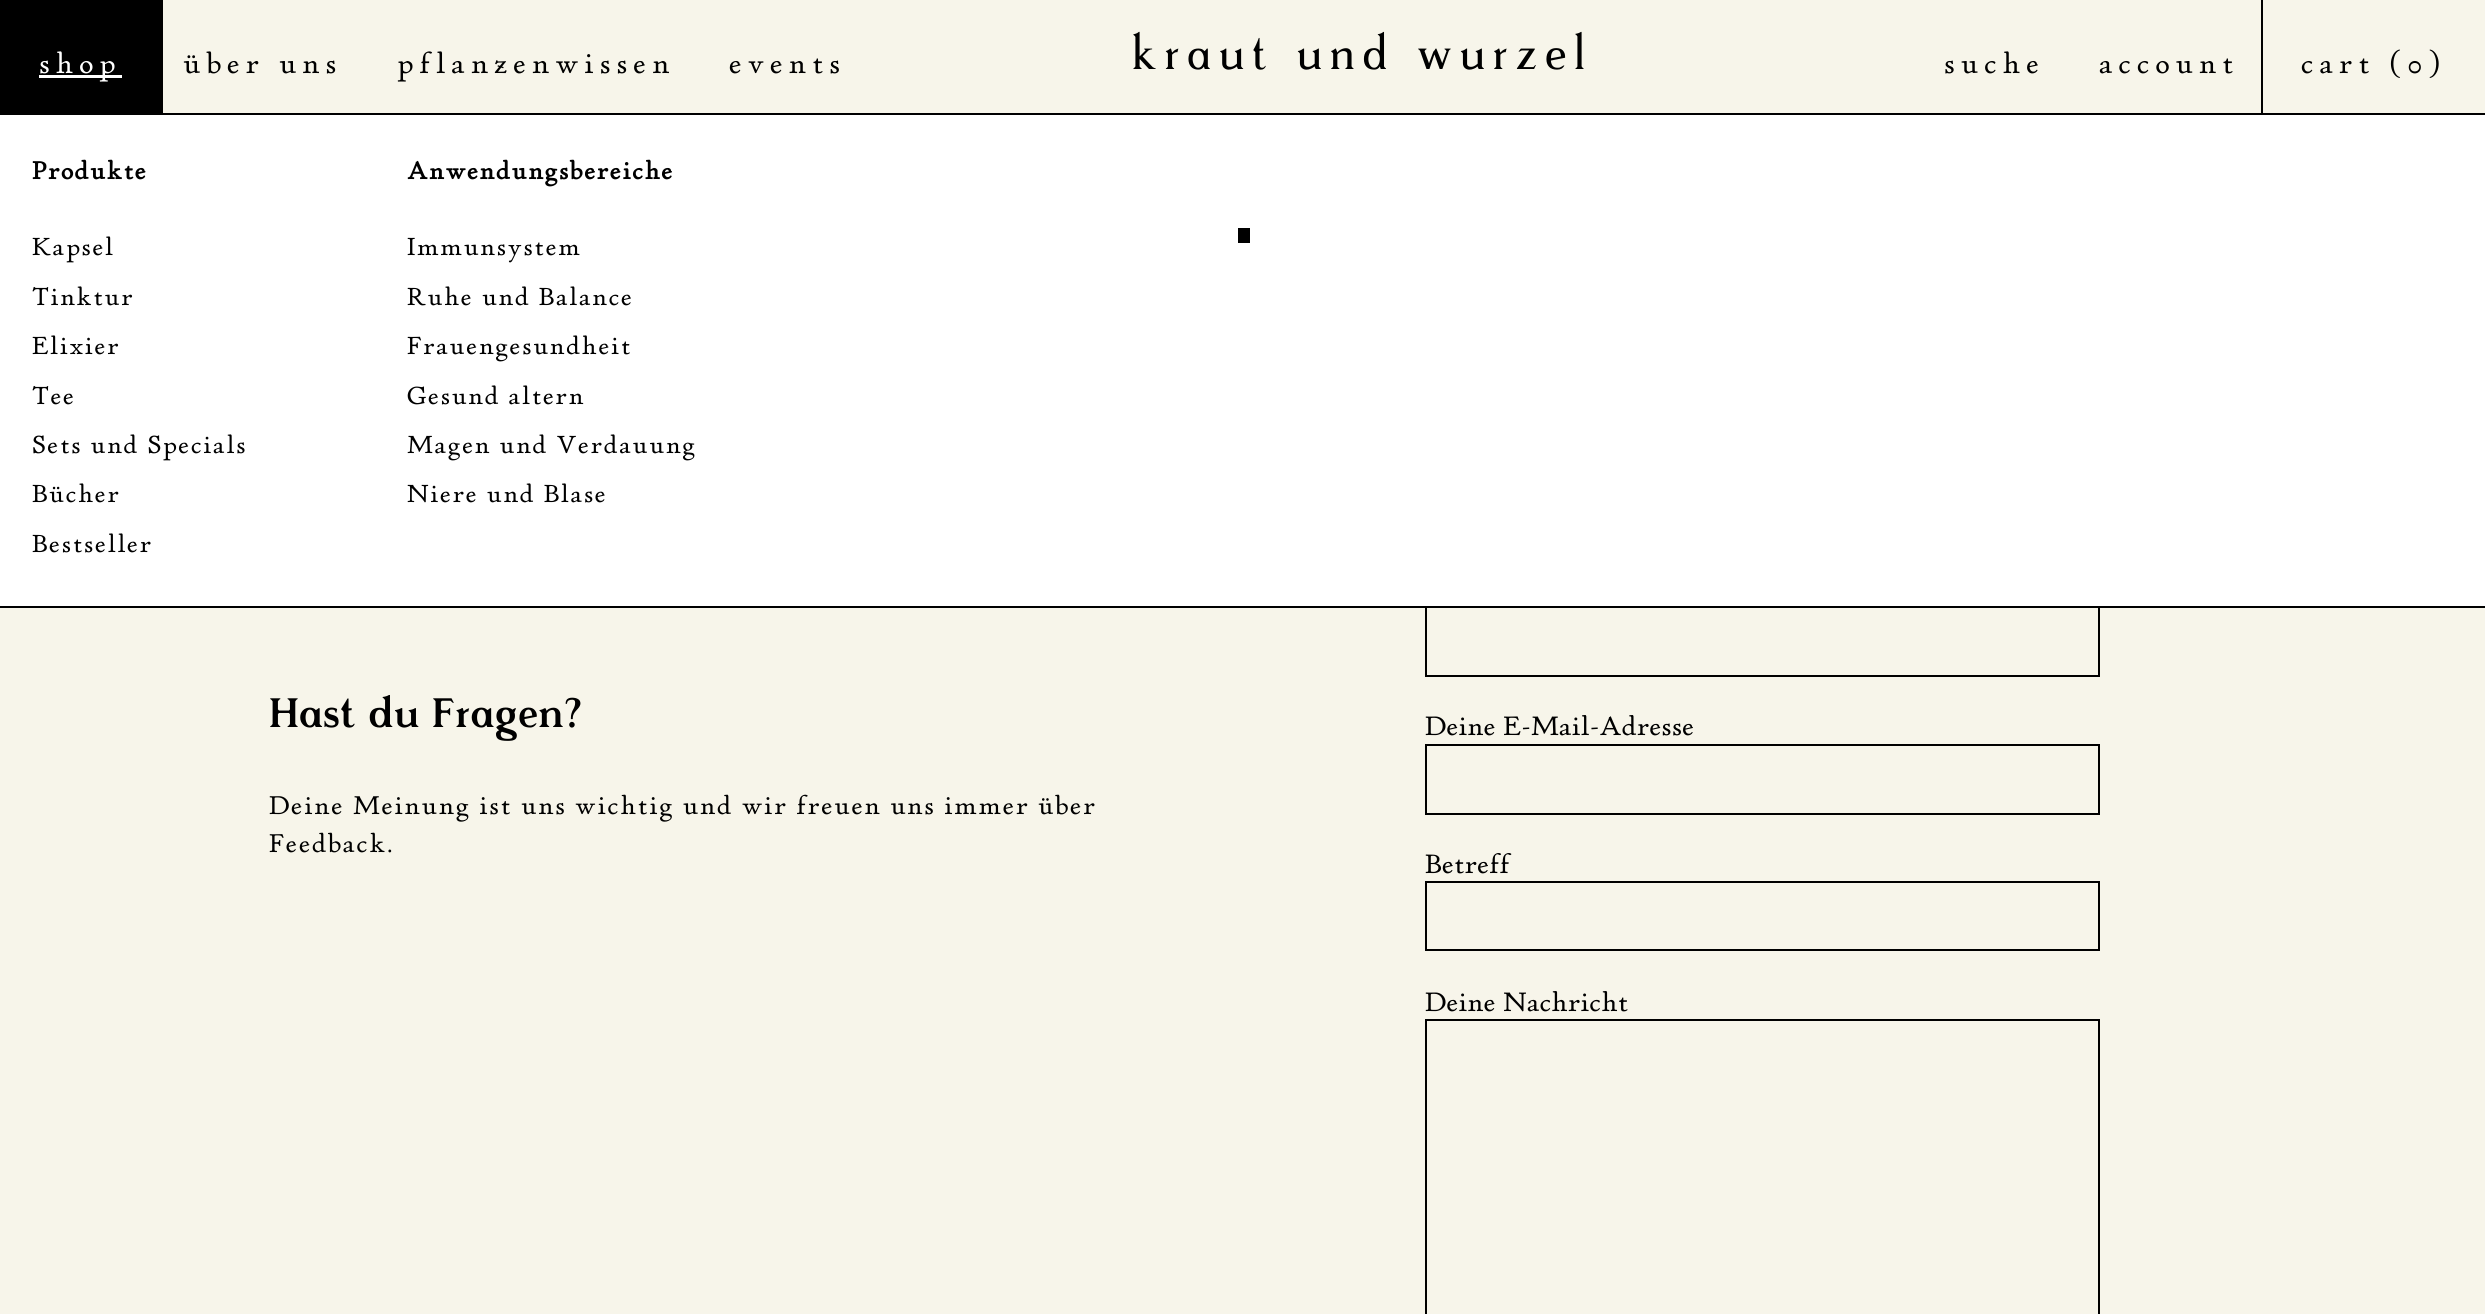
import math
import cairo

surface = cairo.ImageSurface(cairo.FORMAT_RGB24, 2485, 1314)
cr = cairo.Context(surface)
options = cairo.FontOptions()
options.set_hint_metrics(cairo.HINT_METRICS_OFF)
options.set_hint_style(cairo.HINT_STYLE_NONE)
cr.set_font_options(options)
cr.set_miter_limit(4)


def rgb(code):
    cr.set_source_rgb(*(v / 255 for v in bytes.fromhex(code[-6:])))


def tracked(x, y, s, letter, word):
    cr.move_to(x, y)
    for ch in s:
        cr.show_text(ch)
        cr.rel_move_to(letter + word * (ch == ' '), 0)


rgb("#f7f5ea")
cr.paint()
for x, y, w, h, color in [
    (0, 0, 163, 113, "#000000"),
    (39, 75, 83, 3, "#ffffff"),
    (0, 115, 2485, 491, "#ffffff"),
    (0, 113, 2485, 2, "#000000"),
]:
    rgb(color)
    cr.rectangle(x, y, w, h)
    cr.fill()
cr.rectangle(1426, 607, 673, 69)
cr.stroke()
for x, y, w, h, color in [
    (0, 606, 2485, 2, "#000000"),
    (1238, 228, 12, 15, "#000000"),
    (2261, 0, 2, 113, "#000000"),
]:
    rgb(color)
    cr.rectangle(x, y, w, h)
    cr.fill()
cr.rectangle(1426, 745, 673, 69)
cr.stroke()
cr.rectangle(1426, 882, 673, 68)
cr.stroke()
cr.rectangle(1426, 1020, 673, 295)
cr.stroke()
cr.select_font_face("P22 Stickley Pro")
cr.set_font_size(30.25)
rgb("#ffffff")
tracked(39, 73, "shop", 5.8, 0)
cr.select_font_face("P22 Stickley Pro", cairo.FONT_SLANT_NORMAL, cairo.FONT_WEIGHT_BOLD)
cr.set_font_size(26)
rgb("#000000")
tracked(32, 179, "Produkte", 1.5, 0)
cr.select_font_face("P22 Stickley Pro")
for x, y, s in [
    (32, 255, "Kapsel"),
    (32, 305, "Tinktur"),
    (32, 354, "Elixier"),
    (32, 404, "Tee"),
    (32, 453, "Sets und Specials"),
    (32, 502, "Bücher"),
    (32, 552, "Bestseller"),
]:
    tracked(x, y, s, 1.5, 0)
cr.select_font_face("P22 Stickley Pro", cairo.FONT_SLANT_NORMAL, cairo.FONT_WEIGHT_BOLD)
tracked(407, 179, "Anwendungsbereiche", 1.5, 0)
cr.select_font_face("P22 Stickley Pro")
for x, y, s in [
    (407, 255, "Immunsystem"),
    (407, 305, "Ruhe und Balance"),
    (407, 354, "Frauengesundheit"),
    (407, 404, "Gesund altern"),
    (407, 453, "Magen und Verdauung"),
    (407, 502, "Niere und Blase"),
]:
    tracked(x, y, s, 1.5, 0)
cr.set_font_size(30.25)
for x, y, s in [
    (183, 73, "über uns"),
    (397, 73, "pflanzenwissen"),
    (729, 73, "events"),
]:
    tracked(x, y, s, 5.8, 0)
cr.select_font_face("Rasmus")
cr.set_font_size(47.5)
tracked(1132, 69, "kraut und wurzel", 7.5, 0)
cr.select_font_face("P22 Stickley Pro")
cr.set_font_size(30.25)
for x, y, s in [
    (1944, 73, "suche"),
    (2099, 73, "account"),
    (2301, 73, "cart (0)"),
]:
    tracked(x, y, s, 5.8, 0)
cr.select_font_face("Rasmus", cairo.FONT_SLANT_NORMAL, cairo.FONT_WEIGHT_BOLD)
cr.set_font_size(41)
tracked(269, 727, "Hast du Fragen?", 0.1, 0)
cr.select_font_face("P22 Stickley Pro")
cr.set_font_size(27)
tracked(269, 814, "Deine Meinung ist uns wichtig und wir freuen uns immer über", 1.5, 0)
tracked(269, 852, "Feedback.", 1.5, 0)
cr.set_font_size(28)
for x, y, s in [
    (1425, 735, "Deine E-Mail-Adresse"),
    (1425, 873, "Betreff"),
    (1425, 1011, "Deine Nachricht"),
]:
    tracked(x, y, s, 0.1, 0)
surface.write_to_png("page.png")
